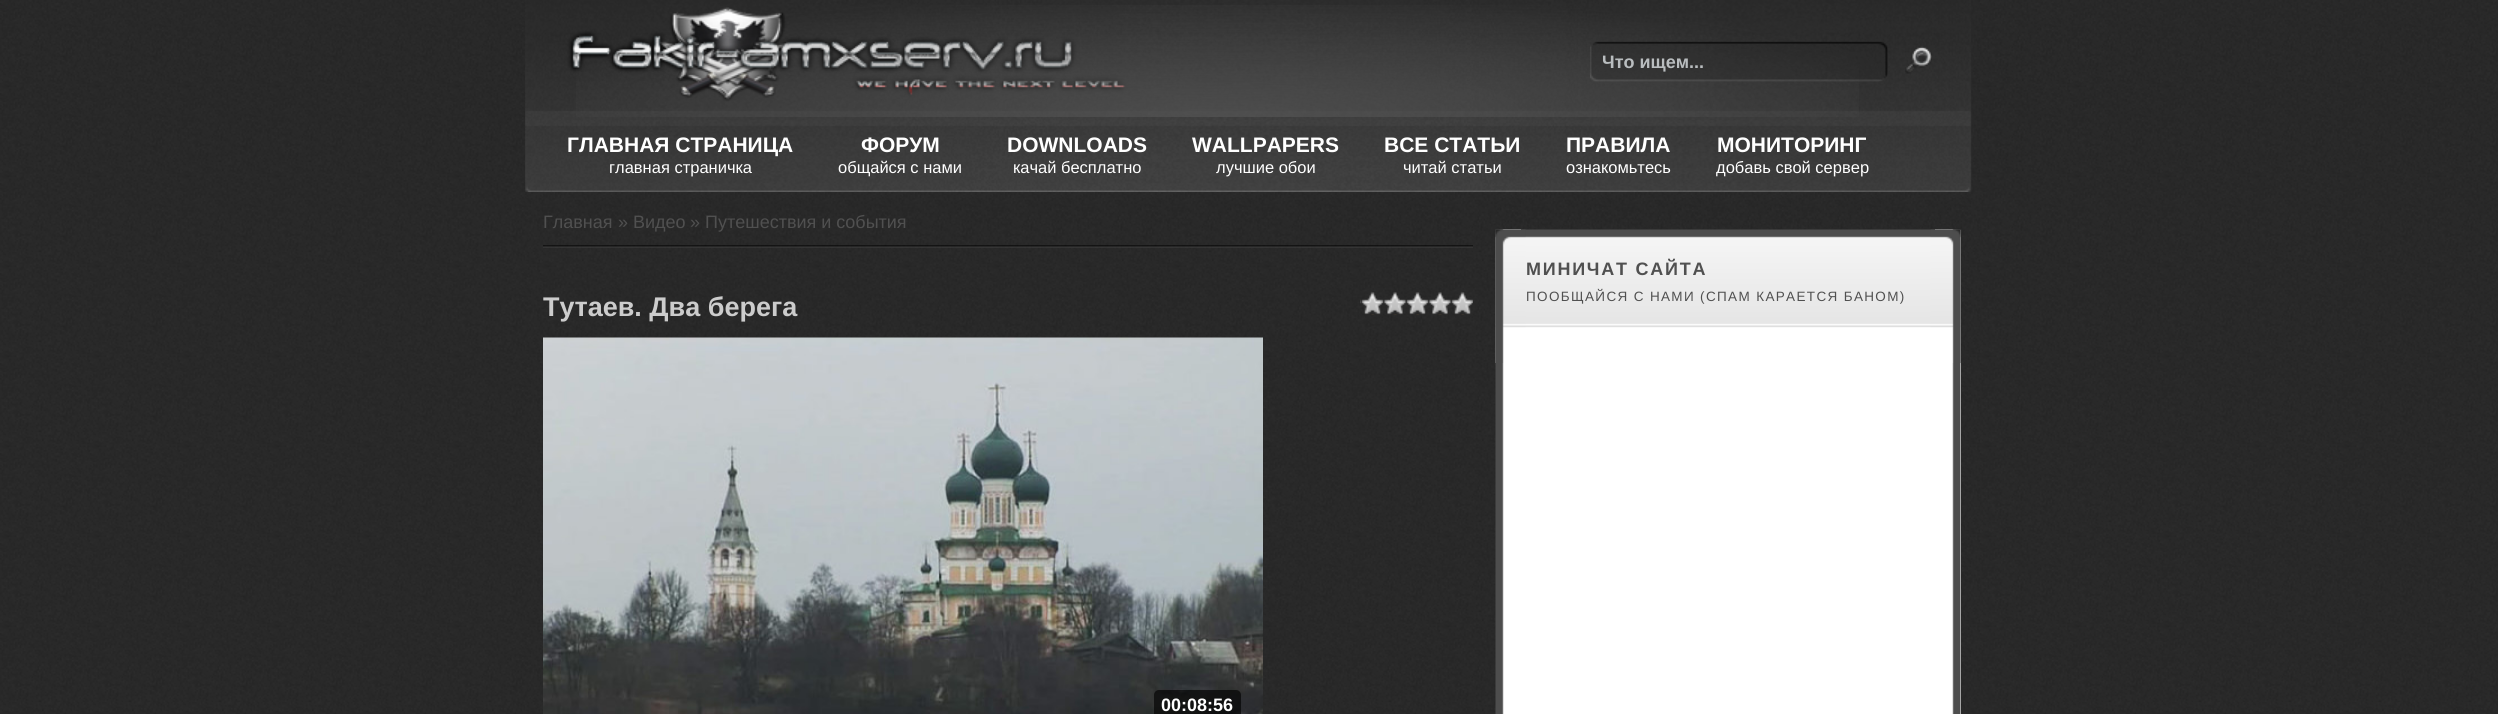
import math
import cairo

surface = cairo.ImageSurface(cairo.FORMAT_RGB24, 2498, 714)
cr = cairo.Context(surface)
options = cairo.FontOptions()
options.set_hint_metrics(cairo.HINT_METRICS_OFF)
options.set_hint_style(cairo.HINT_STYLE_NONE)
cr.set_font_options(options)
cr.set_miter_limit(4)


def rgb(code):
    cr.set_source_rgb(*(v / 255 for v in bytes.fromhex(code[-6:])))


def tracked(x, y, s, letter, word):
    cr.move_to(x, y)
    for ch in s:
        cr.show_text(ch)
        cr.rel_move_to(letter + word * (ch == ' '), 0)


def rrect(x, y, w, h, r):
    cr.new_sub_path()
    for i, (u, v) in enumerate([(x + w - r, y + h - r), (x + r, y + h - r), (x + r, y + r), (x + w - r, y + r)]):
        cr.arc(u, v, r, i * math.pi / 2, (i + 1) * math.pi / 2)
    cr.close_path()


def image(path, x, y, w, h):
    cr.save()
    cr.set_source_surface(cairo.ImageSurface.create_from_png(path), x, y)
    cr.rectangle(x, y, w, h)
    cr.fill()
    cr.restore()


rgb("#ffffff")
cr.paint()
image("img/1.png", 0, 0, 2498, 714)
image("img/2.png", 525, 0, 1447, 192)
image("img/3.png", 576, 5, 1283, 112)
image("img/4.png", 1590, 41, 298, 41)
image("img/5.png", 1905, 46, 27, 28)
cr.set_source_rgba(0, 0, 0, 0.5)
cr.rectangle(543, 245, 930, 2)
cr.fill()
cr.set_source_rgba(0.322, 0.322, 0.322, 0.3)
cr.rectangle(543, 246, 930, 2)
cr.fill()
image("img/6.png", 1360, 292, 113, 23)
image("img/7.png", 543, 337, 720, 377)
cr.set_source_rgba(0, 0, 0, 0.63)
rrect(1154, 690, 87, 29, 5)
cr.fill()
rgb("#ffffff")
cr.rectangle(1521, 230, 440, 484)
cr.fill()
image("img/8.png", 1495, 229, 466, 134)
image("img/9.png", 1495, 229, 26, 485)
image("img/10.png", 1935, 229, 26, 485)
image("img/11.png", 1495, 229, 31, 134)
image("img/12.png", 1930, 229, 31, 134)
cr.select_font_face("Liberation Sans", cairo.FONT_SLANT_NORMAL, cairo.FONT_WEIGHT_BOLD)
cr.set_font_size(18)
rgb("#b9bdbf")
cr.move_to(1602, 68)
cr.show_text("Что ищем...")
cr.set_font_size(21)
rgb("#ffffff")
cr.move_to(567, 152)
cr.show_text("ГЛАВНАЯ СТРАНИЦА")
cr.select_font_face("Liberation Sans")
cr.set_font_size(16.5)
cr.move_to(609, 173)
cr.show_text("главная страничка")
cr.select_font_face("Liberation Sans", cairo.FONT_SLANT_NORMAL, cairo.FONT_WEIGHT_BOLD)
cr.set_font_size(21)
cr.move_to(861, 152)
cr.show_text("ФОРУМ")
cr.select_font_face("Liberation Sans")
cr.set_font_size(16.5)
cr.move_to(838, 173)
cr.show_text("общайся с нами")
cr.select_font_face("Liberation Sans", cairo.FONT_SLANT_NORMAL, cairo.FONT_WEIGHT_BOLD)
cr.set_font_size(21)
cr.move_to(1007, 152)
cr.show_text("DOWNLOADS")
cr.select_font_face("Liberation Sans")
cr.set_font_size(16.5)
cr.move_to(1013, 173)
cr.show_text("качай бесплатно")
cr.select_font_face("Liberation Sans", cairo.FONT_SLANT_NORMAL, cairo.FONT_WEIGHT_BOLD)
cr.set_font_size(21)
cr.move_to(1192, 152)
cr.show_text("WALLPAPERS")
cr.select_font_face("Liberation Sans")
cr.set_font_size(16.5)
cr.move_to(1216, 173)
cr.show_text("лучшие обои")
cr.select_font_face("Liberation Sans", cairo.FONT_SLANT_NORMAL, cairo.FONT_WEIGHT_BOLD)
cr.set_font_size(21)
cr.move_to(1384, 152)
cr.show_text("ВСЕ СТАТЬИ")
cr.select_font_face("Liberation Sans")
cr.set_font_size(16.5)
cr.move_to(1403, 173)
cr.show_text("читай статьи")
cr.select_font_face("Liberation Sans", cairo.FONT_SLANT_NORMAL, cairo.FONT_WEIGHT_BOLD)
cr.set_font_size(21)
cr.move_to(1566, 152)
cr.show_text("ПРАВИЛА")
cr.select_font_face("Liberation Sans")
cr.set_font_size(16.5)
cr.move_to(1566, 173)
cr.show_text("ознакомьтесь")
cr.select_font_face("Liberation Sans", cairo.FONT_SLANT_NORMAL, cairo.FONT_WEIGHT_BOLD)
cr.set_font_size(21)
cr.move_to(1717, 152)
cr.show_text("МОНИТОРИНГ")
cr.select_font_face("Liberation Sans")
cr.set_font_size(16.5)
cr.move_to(1716, 173)
cr.show_text("добавь свой сервер")
cr.set_font_size(18)
rgb("#505050")
for x, y, s in [
    (543, 228, "Главная"),
    (618, 228, "»"),
    (633, 228, "Видео"),
    (690, 228, "»"),
    (705, 228, "Путешествия и события"),
]:
    cr.move_to(x, y)
    cr.show_text(s)
cr.select_font_face("Liberation Sans", cairo.FONT_SLANT_NORMAL, cairo.FONT_WEIGHT_BOLD)
cr.set_font_size(27)
rgb("#cccccc")
cr.move_to(543, 316)
cr.show_text("Тутаев. Два берега")
cr.set_font_size(18)
rgb("#ffffff")
cr.move_to(1161, 711)
cr.show_text("00:08:56")
rgb("#505050")
tracked(1526, 275, "МИНИЧАТ САЙТА", 1.75, 0)
cr.select_font_face("Liberation Sans")
cr.set_font_size(13.5)
tracked(1526, 301, "ПООБЩАЙСЯ С НАМИ (СПАМ КАРАЕТСЯ БАНОМ)", 1.35, 0)
surface.write_to_png("page.png")
